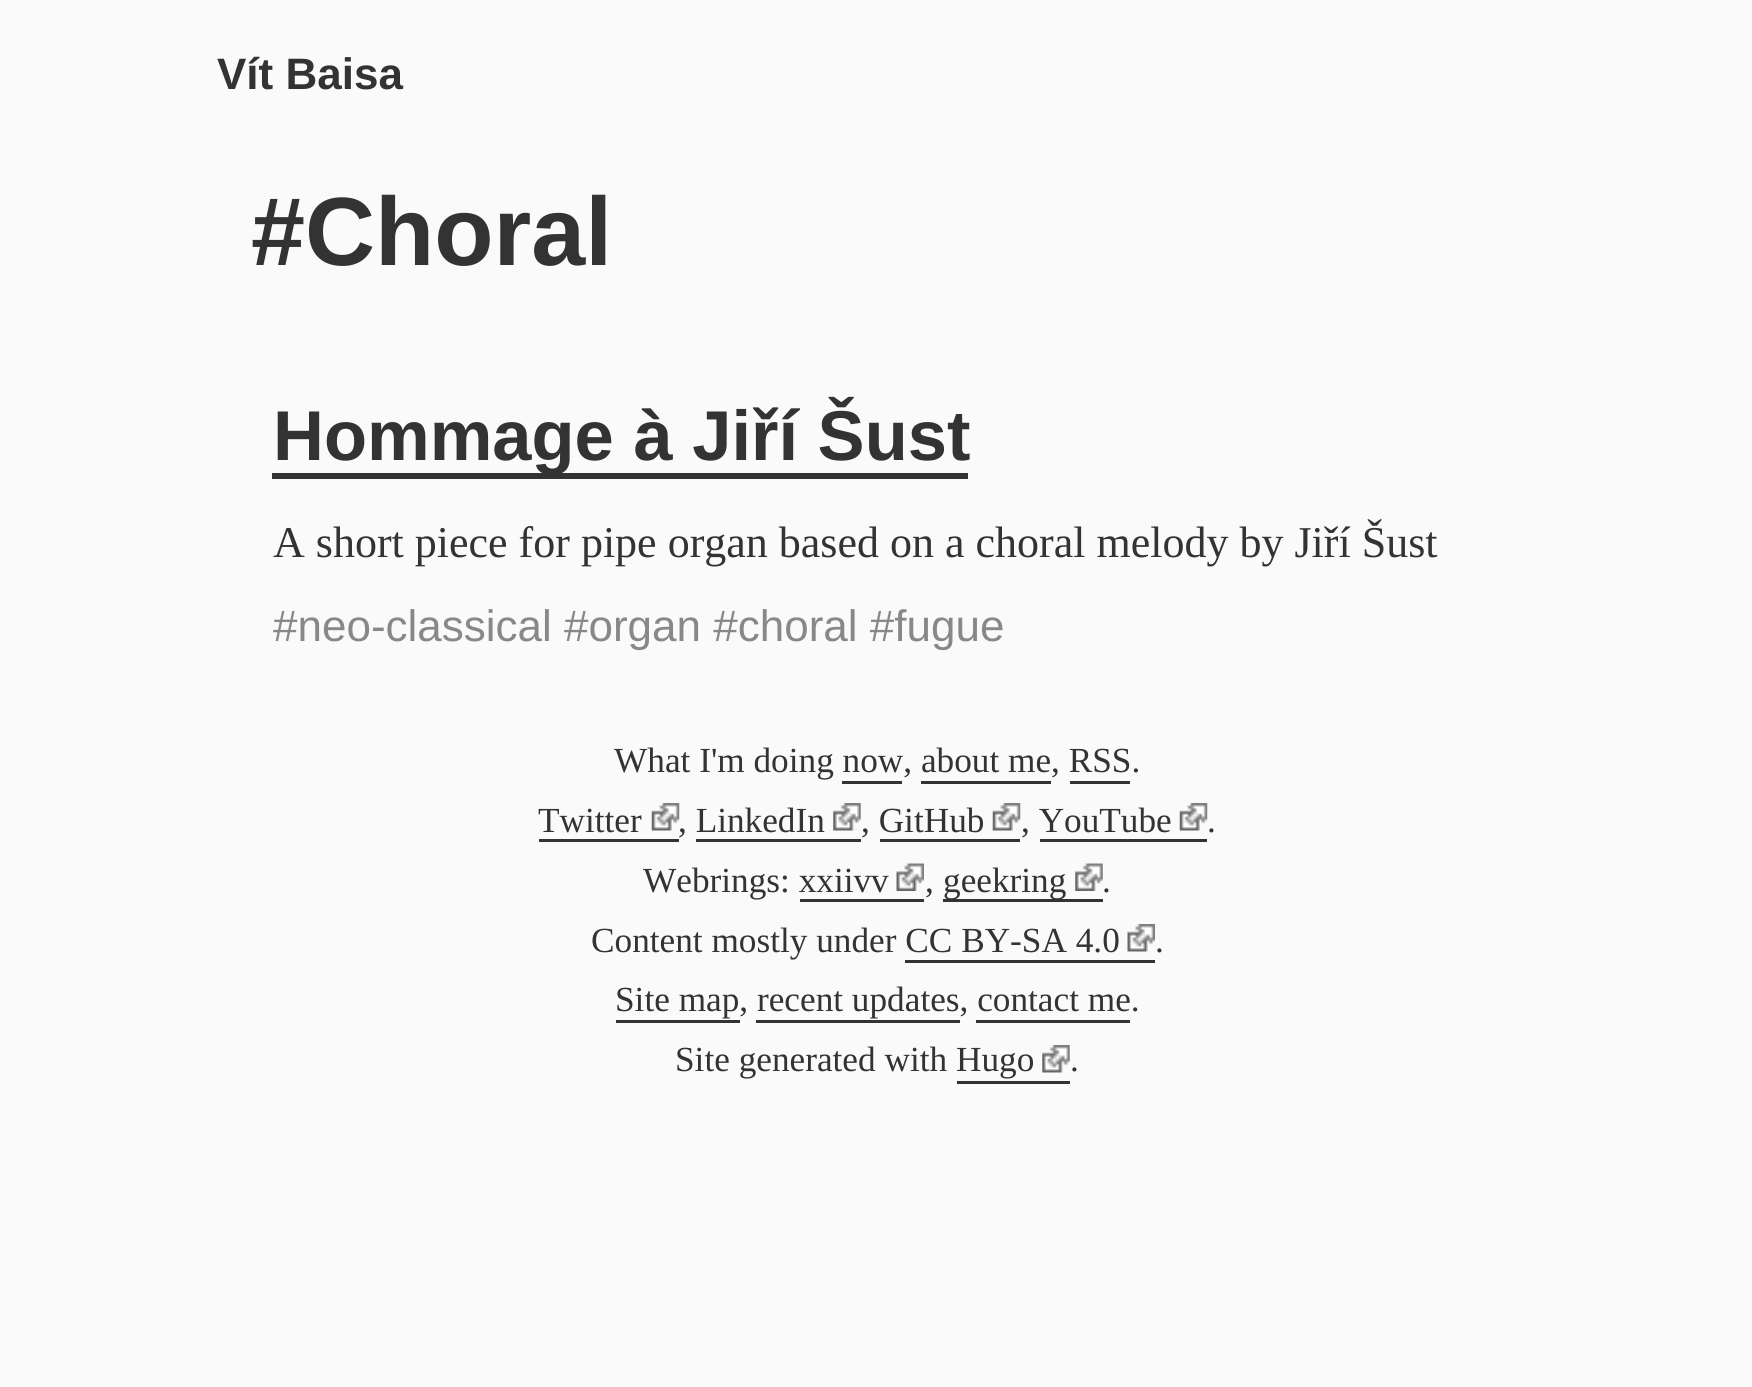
import math
import cairo

surface = cairo.ImageSurface(cairo.FORMAT_RGB24, 1752, 1387)
cr = cairo.Context(surface)
options = cairo.FontOptions()
options.set_hint_metrics(cairo.HINT_METRICS_OFF)
options.set_hint_style(cairo.HINT_STYLE_NONE)
cr.set_font_options(options)
cr.set_miter_limit(4)


def rgb(code):
    cr.set_source_rgb(*(v / 255 for v in bytes.fromhex(code[-6:])))


def image(path, x, y, w, h):
    cr.save()
    cr.set_source_surface(cairo.ImageSurface.create_from_png(path), x, y)
    cr.rectangle(x, y, w, h)
    cr.fill()
    cr.restore()


rgb("#fafafa")
cr.paint()
for x, y, w, h, color in [
    (272, 473, 696, 6, "#333333"),
    (842, 781, 60, 3, "#333333"),
    (921, 781, 130, 3, "#333333"),
    (1070, 781, 60, 3, "#333333"),
    (539, 839, 140, 3, "#333333"),
]:
    rgb(color)
    cr.rectangle(x, y, w, h)
    cr.fill()
image("img/1.png", 651, 803, 29, 28)
image("img/2.png", 833, 803, 28, 28)
image("img/1.png", 992, 803, 29, 28)
image("img/1.png", 1179, 803, 29, 28)
for x, y, w, h, color in [
    (696, 839, 165, 3, "#333333"),
    (880, 839, 140, 3, "#333333"),
    (1040, 839, 167, 3, "#333333"),
]:
    rgb(color)
    cr.rectangle(x, y, w, h)
    cr.fill()
image("img/3.png", 896, 863, 28, 28)
cr.rectangle(943, 899, 160, 3)
cr.fill()
image("img/4.png", 1075, 863, 28, 28)
cr.rectangle(800, 899, 124, 3)
cr.fill()
image("img/5.png", 1127, 924, 28, 28)
for x, y, w, h, color in [
    (905, 960, 250, 3, "#333333"),
    (616, 1020, 124, 3, "#333333"),
    (756, 1020, 204, 3, "#333333"),
    (976, 1020, 154, 3, "#333333"),
]:
    rgb(color)
    cr.rectangle(x, y, w, h)
    cr.fill()
image("img/6.png", 1042, 1045, 28, 28)
cr.rectangle(957, 1081, 113, 3)
cr.fill()
cr.select_font_face("Liberation Sans", cairo.FONT_SLANT_NORMAL, cairo.FONT_WEIGHT_BOLD)
cr.set_font_size(44)
cr.move_to(217, 89)
cr.show_text("Vít Baisa")
cr.set_font_size(97)
cr.move_to(251, 265)
cr.show_text("#Choral")
cr.set_font_size(70.5)
cr.move_to(273, 460)
cr.show_text("Hommage à Jiří Šust")
cr.select_font_face("Liberation Serif")
cr.set_font_size(44)
cr.move_to(273, 557)
cr.show_text("A short piece for pipe organ based on a choral melody by Jiří Šust")
cr.select_font_face("Liberation Sans")
rgb("#888888")
cr.move_to(273, 641)
cr.show_text("#neo-classical #organ #choral #fugue")
cr.select_font_face("Liberation Serif")
cr.set_font_size(35.25)
rgb("#333333")
for x, y, s in [
    (614, 772, "What I'm doing now, about me, RSS."),
    (538, 832, "Twitter"),
    (678, 832, ", LinkedIn"),
    (861, 832, ", GitHub"),
    (1021, 832, ", YouTube"),
    (1207, 832, "."),
    (643, 892, "Webrings: xxiivv"),
    (925, 892, ","),
    (943, 892, "geekring"),
    (1102, 892, "."),
    (591, 952, "Content mostly under CC BY-SA 4.0"),
    (1155, 952, "."),
    (615, 1011, "Site map, recent updates, contact me."),
    (675, 1071, "Site generated with Hugo"),
    (1070, 1071, "."),
]:
    cr.move_to(x, y)
    cr.show_text(s)
surface.write_to_png("page.png")
